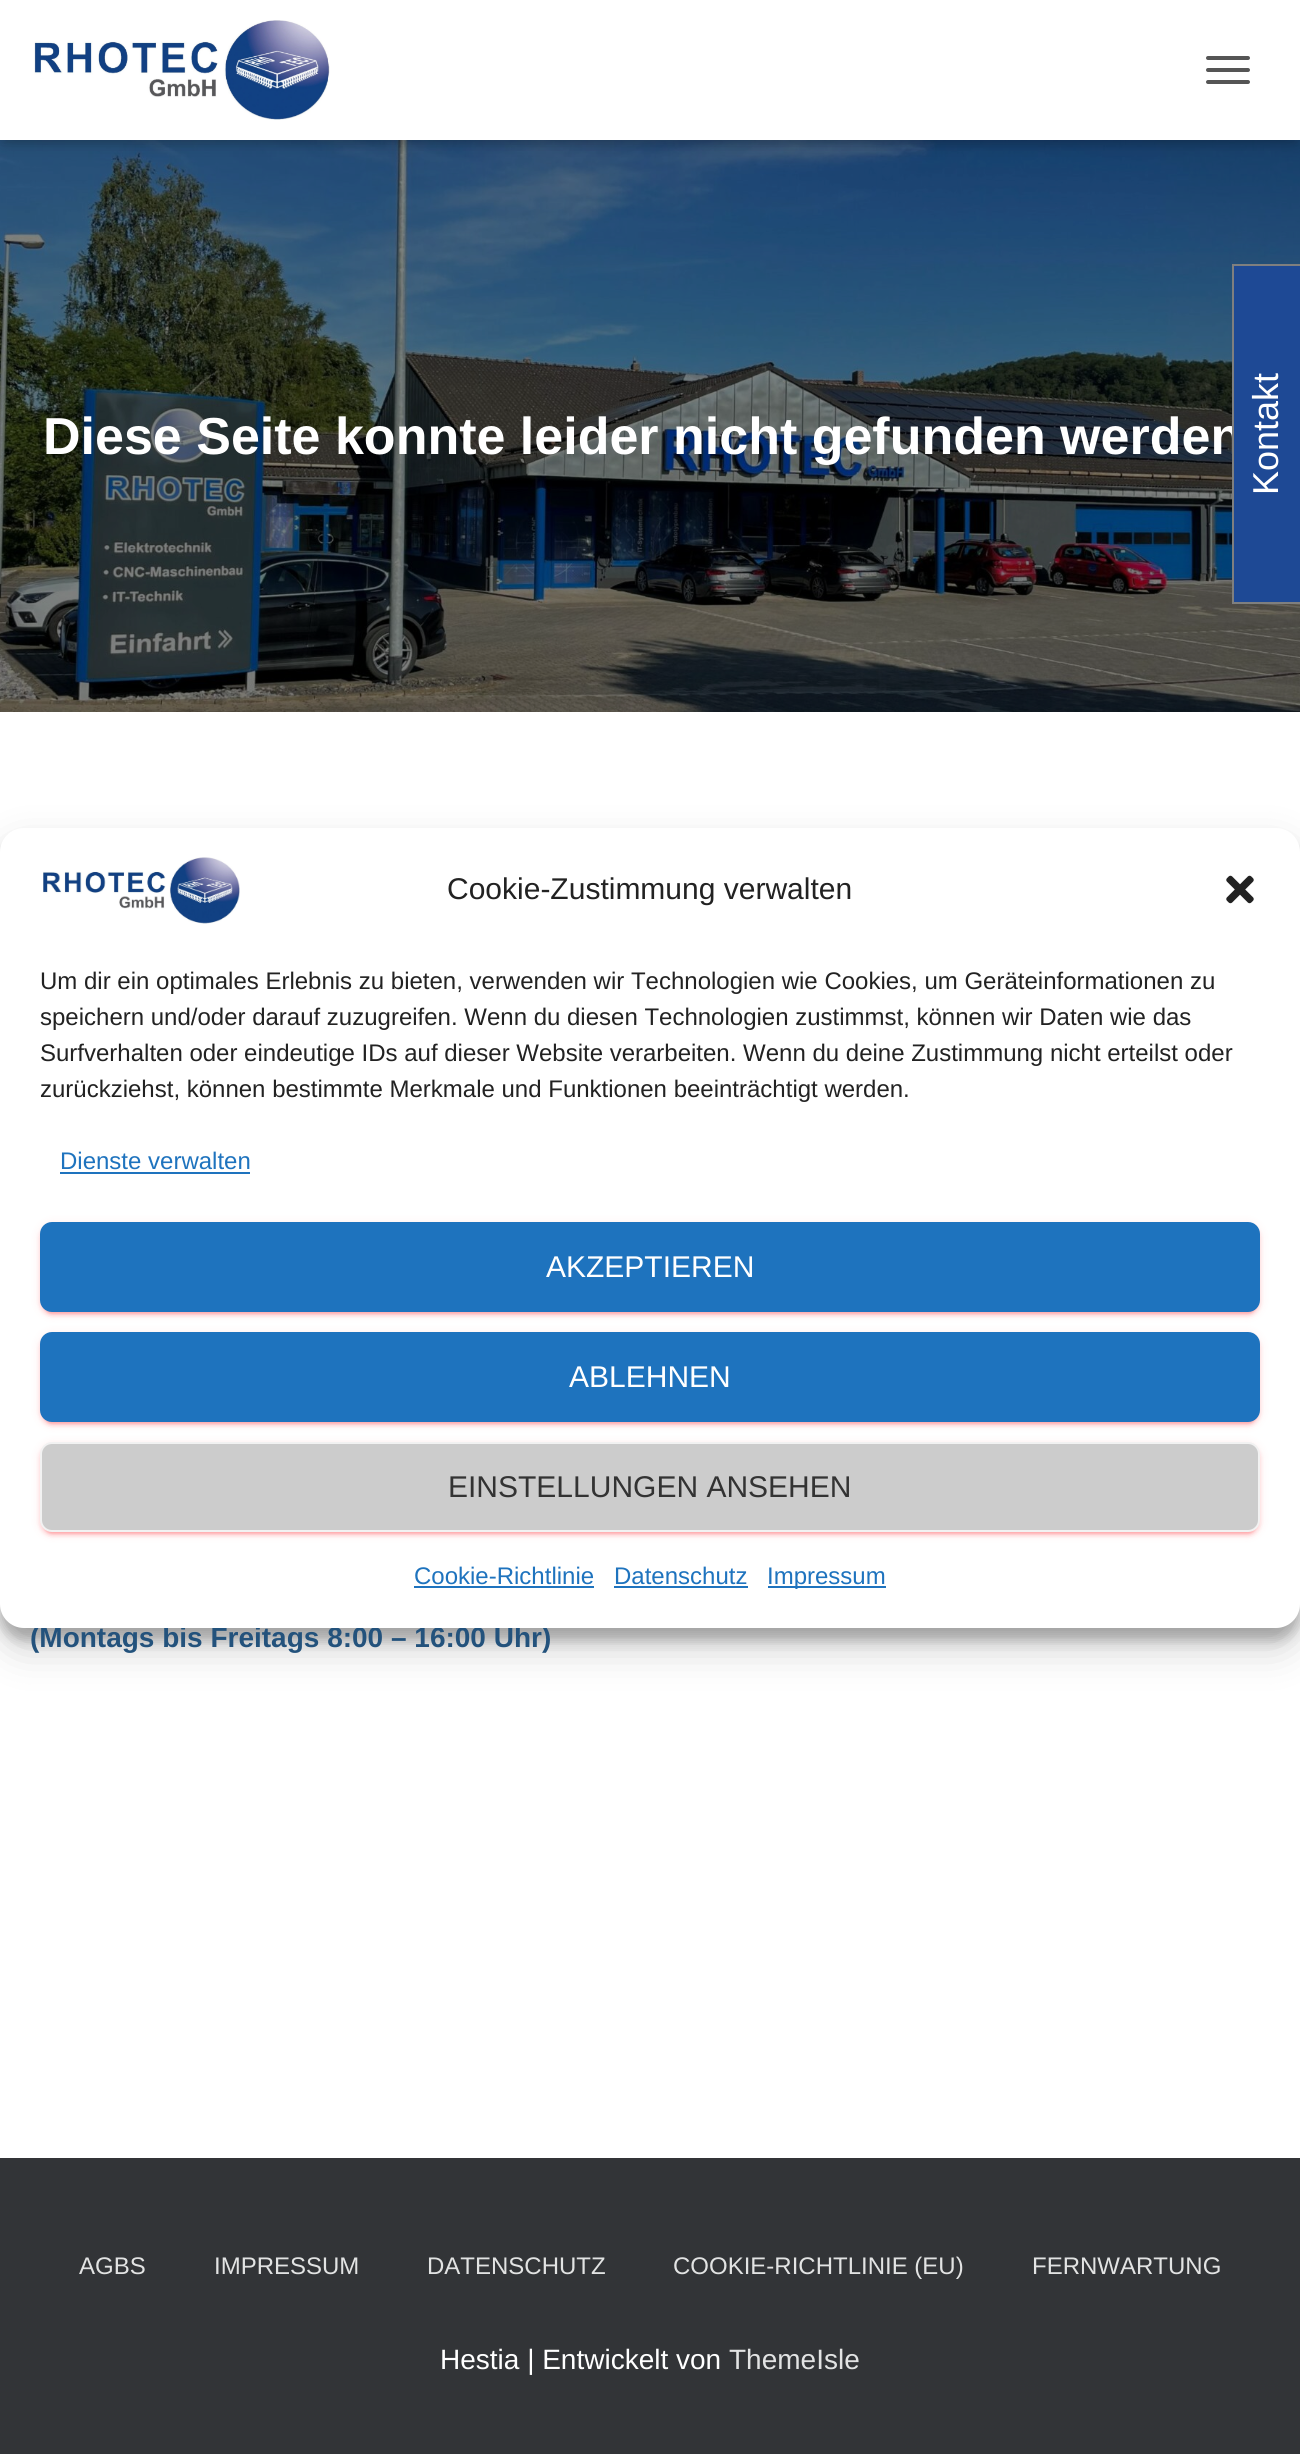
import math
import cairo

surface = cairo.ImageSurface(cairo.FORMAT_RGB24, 1300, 2454)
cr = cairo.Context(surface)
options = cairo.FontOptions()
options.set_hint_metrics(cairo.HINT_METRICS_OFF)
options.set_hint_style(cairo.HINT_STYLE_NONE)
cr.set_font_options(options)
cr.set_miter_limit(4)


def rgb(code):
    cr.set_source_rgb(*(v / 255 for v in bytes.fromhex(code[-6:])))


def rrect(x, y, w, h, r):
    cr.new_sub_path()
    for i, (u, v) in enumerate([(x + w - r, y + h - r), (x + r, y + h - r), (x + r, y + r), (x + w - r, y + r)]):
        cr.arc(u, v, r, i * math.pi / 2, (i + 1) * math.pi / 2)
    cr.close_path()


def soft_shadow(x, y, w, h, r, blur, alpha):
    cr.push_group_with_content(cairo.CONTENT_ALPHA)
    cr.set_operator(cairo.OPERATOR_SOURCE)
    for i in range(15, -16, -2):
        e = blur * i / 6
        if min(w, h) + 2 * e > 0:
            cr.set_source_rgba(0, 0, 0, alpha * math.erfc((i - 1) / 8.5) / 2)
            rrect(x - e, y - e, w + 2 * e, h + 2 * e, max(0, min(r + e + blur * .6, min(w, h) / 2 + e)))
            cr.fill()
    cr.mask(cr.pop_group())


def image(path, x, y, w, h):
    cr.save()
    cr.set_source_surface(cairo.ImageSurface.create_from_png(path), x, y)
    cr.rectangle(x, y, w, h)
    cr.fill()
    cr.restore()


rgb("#ffffff")
cr.paint()
image("img/2.png", 0, 140, 1300, 572)
rgb("#000000")
soft_shadow(4, 12, 1292, 132, 0, 5, 0.1)
soft_shadow(0, 2, 1300, 140, 0, 10, 0.12)
soft_shadow(12, 14, 1276, 116, 0, 10, 0.42)
rgb("#ffffff")
cr.rectangle(0, 0, 1300, 140)
cr.fill()
image("img/1.png", 34, 20, 296, 100)
rgb("#555555")
rrect(1206, 56, 44, 4, 2)
cr.fill()
rrect(1206, 68, 44, 4, 2)
cr.fill()
rrect(1206, 80, 44, 4, 2)
cr.fill()
rgb("#000000")
soft_shadow(-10, 714, 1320, 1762, 0, 30, 0.12)
rgb("#ffffff")
cr.rectangle(0, 712, 1300, 1446)
cr.fill()
rgb("#323437")
cr.rectangle(0, 2158, 1300, 296)
cr.fill()
rgb("#000000")
soft_shadow(0, 840, 1300, 800, 24, 6, 0.23)
soft_shadow(0, 848, 1300, 800, 24, 20, 0.19)
cr.select_font_face("Liberation Sans", cairo.FONT_SLANT_NORMAL, cairo.FONT_WEIGHT_BOLD)
cr.set_font_size(52)
rgb("#ffffff")
cr.move_to(43, 454)
cr.show_text("Diese Seite konnte leider nicht gefunden werden")
for x, y, w, h, color in [
    (1234, 266, 66, 336, "#1e4995"),
    (1232, 264, 2, 340, "#7f7f7f"),
    (1232, 264, 68, 2, "#7f7f7f"),
    (1232, 602, 68, 2, "#7f7f7f"),
]:
    rgb(color)
    cr.rectangle(x, y, w, h)
    cr.fill()
cr.select_font_face("Liberation Sans")
cr.set_font_size(36)
rgb("#ffffff")
cr.save()
cr.translate(1278, 495)
cr.rotate(-90 * math.pi / 180)
cr.move_to(0, 0)
cr.show_text("Kontakt")
cr.restore()
cr.select_font_face("Liberation Sans", cairo.FONT_SLANT_NORMAL, cairo.FONT_WEIGHT_BOLD)
cr.set_font_size(28)
rgb("#23527c")
cr.move_to(30, 1647)
cr.show_text("(Montags bis Freitags 8:00 – 16:00 Uhr)")
cr.select_font_face("Liberation Sans")
cr.set_font_size(24)
rgb("#e2e3e3")
for x, y, s in [
    (79, 2274, "AGBS"),
    (214, 2274, "IMPRESSUM"),
    (427, 2274, "DATENSCHUTZ"),
    (673, 2274, "COOKIE-RICHTLINIE (EU)"),
    (1032, 2274, "FERNWARTUNG"),
]:
    cr.move_to(x, y)
    cr.show_text(s)
cr.set_font_size(28)
rgb("#ffffff")
cr.move_to(440, 2369)
cr.show_text("Hestia | Entwickelt von")
rgb("#e2e3e3")
cr.move_to(729, 2369)
cr.show_text("ThemeIsle")
rgb("#ffffff")
rrect(0, 828, 1300, 800, 24)
cr.fill()
image("img/3.png", 43, 857, 197, 67)
cr.set_font_size(30)
rgb("#222222")
cr.move_to(447, 899)
cr.show_text("Cookie-Zustimmung verwalten")
image("img/4.png", 1226, 875, 28, 29)
cr.set_font_size(24)
for x, y, s in [
    (40, 989, "Um dir ein optimales Erlebnis zu bieten, verwenden wir Technologien wie Cookies, um Geräteinformationen zu"),
    (40, 1025, "speichern und/oder darauf zuzugreifen. Wenn du diesen Technologien zustimmst, können wir Daten wie das"),
    (40, 1061, "Surfverhalten oder eindeutige IDs auf dieser Website verarbeiten. Wenn du deine Zustimmung nicht erteilst oder"),
    (40, 1097, "zurückziehst, können bestimmte Merkmale und Funktionen beeinträchtigt werden."),
]:
    cr.move_to(x, y)
    cr.show_text(s)
rgb("#1e73be")
cr.move_to(60, 1169)
cr.show_text("Dienste verwalten")
cr.rectangle(60, 1172, 190, 2)
cr.fill()
rgb("#ff2128")
soft_shadow(40, 1224, 1220, 90, 12, 5, 0.12)
soft_shadow(44, 1232, 1212, 82, 8, 1, 0.2)
soft_shadow(40, 1226, 1220, 90, 12, 2, 0.14)
rgb("#1e73be")
rrect(41, 1223, 1218, 88, 11)
cr.fill_preserve()
cr.stroke()
cr.set_font_size(30)
rgb("#ffffff")
cr.move_to(546, 1277)
cr.show_text("AKZEPTIEREN")
rgb("#ff2128")
soft_shadow(40, 1334, 1220, 90, 12, 5, 0.12)
soft_shadow(44, 1342, 1212, 82, 8, 1, 0.2)
soft_shadow(40, 1336, 1220, 90, 12, 2, 0.14)
rgb("#1e73be")
rrect(41, 1333, 1218, 88, 11)
cr.fill_preserve()
cr.stroke()
rgb("#ffffff")
cr.move_to(569, 1387)
cr.show_text("ABLEHNEN")
rgb("#ff2128")
soft_shadow(40, 1444, 1220, 90, 12, 5, 0.12)
soft_shadow(44, 1452, 1212, 82, 8, 1, 0.2)
soft_shadow(40, 1446, 1220, 90, 12, 2, 0.14)
rgb("#cccccc")
rrect(41, 1443, 1218, 88, 11)
cr.fill_preserve()
rgb("#f2f2f2")
cr.stroke()
rgb("#333333")
cr.move_to(448, 1497)
cr.show_text("EINSTELLUNGEN ANSEHEN")
cr.set_font_size(24)
rgb("#1e73be")
cr.move_to(414, 1584)
cr.show_text("Cookie-Richtlinie")
cr.rectangle(414, 1586, 180, 2)
cr.fill()
cr.move_to(614, 1584)
cr.show_text("Datenschutz")
cr.rectangle(614, 1586, 134, 2)
cr.fill()
cr.rectangle(768, 1586, 118, 2)
cr.fill()
cr.move_to(767, 1584)
cr.show_text("Impressum")
surface.write_to_png("page.png")
